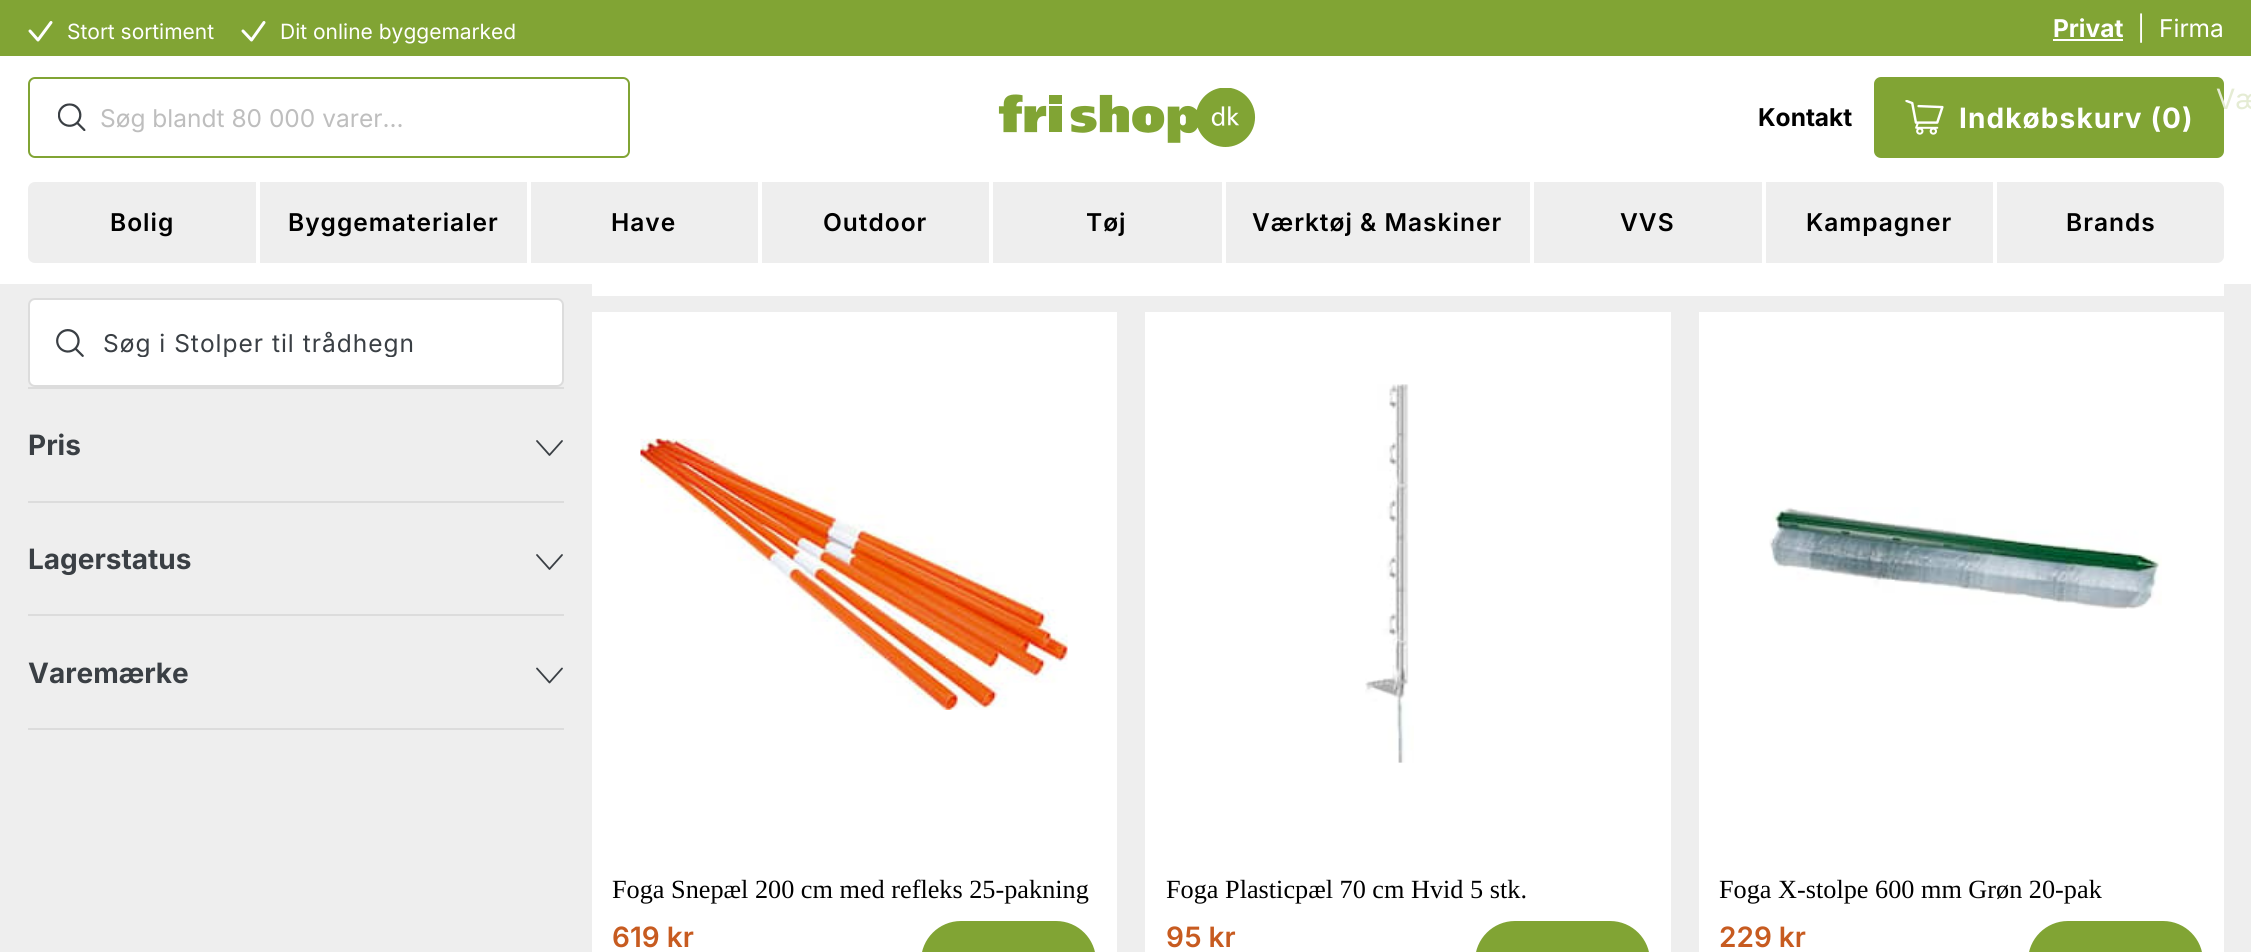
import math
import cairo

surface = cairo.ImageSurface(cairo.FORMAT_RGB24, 2251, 952)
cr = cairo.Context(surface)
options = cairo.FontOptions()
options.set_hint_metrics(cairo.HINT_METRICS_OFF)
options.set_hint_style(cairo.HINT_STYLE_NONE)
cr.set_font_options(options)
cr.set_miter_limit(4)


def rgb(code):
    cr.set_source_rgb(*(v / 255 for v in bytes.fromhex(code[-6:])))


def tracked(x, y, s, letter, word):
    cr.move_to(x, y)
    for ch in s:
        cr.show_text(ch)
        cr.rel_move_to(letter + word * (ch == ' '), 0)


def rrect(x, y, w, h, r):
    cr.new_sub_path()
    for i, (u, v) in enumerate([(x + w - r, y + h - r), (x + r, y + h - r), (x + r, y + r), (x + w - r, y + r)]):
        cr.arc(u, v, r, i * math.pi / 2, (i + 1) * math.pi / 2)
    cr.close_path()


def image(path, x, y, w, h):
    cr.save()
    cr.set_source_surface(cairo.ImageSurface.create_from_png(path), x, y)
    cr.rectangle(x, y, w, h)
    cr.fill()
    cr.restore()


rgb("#eeeeee")
cr.paint()
rgb("#ffffff")
cr.rectangle(0, 56, 2251, 228)
cr.fill()
rgb("#81a434")
cr.rectangle(0, 0, 2251, 56)
cr.fill()
cr.new_path()
cr.move_to(30, 31)
cr.line_to(38, 40)
cr.line_to(51, 22.5)
rgb("#ffffff")
cr.set_line_width(3)
cr.set_line_cap(cairo.LINE_CAP_ROUND)
cr.set_line_join(cairo.LINE_JOIN_ROUND)
cr.stroke()
cr.new_path()
cr.move_to(243, 31)
cr.line_to(251.5, 40)
cr.line_to(264, 22.5)
cr.stroke()
cr.rectangle(2053, 39, 70, 2)
cr.fill()
rrect(29, 78, 600, 79, 6)
rgb("#81a434")
cr.set_line_width(2)
cr.set_line_cap(cairo.LINE_CAP_BUTT)
cr.set_line_join(cairo.LINE_JOIN_MITER)
cr.stroke()
rgb("#ffffff")
rrect(30, 79, 598, 77, 7)
cr.fill()
image("img/1.png", 58, 103, 28, 28)
image("img/2.png", 998, 88, 258, 59)
rgb("#81a434")
rrect(1875, 78, 348, 79, 6)
cr.fill_preserve()
cr.stroke()
image("img/3.png", 1905, 100, 39, 35)
rgb("#eeeeee")
rrect(28, 182, 2196, 81, 7)
cr.fill()
for x, y, w, h, color in [
    (256, 182, 4, 81, "#ffffff"),
    (527, 182, 4, 81, "#ffffff"),
    (758, 182, 4, 81, "#ffffff"),
    (989, 182, 4, 81, "#ffffff"),
    (1222, 182, 4, 81, "#ffffff"),
    (1530, 182, 4, 81, "#ffffff"),
    (1762, 182, 4, 81, "#ffffff"),
    (1993, 182, 4, 81, "#ffffff"),
]:
    rgb(color)
    cr.rectangle(x, y, w, h)
    cr.fill()
rrect(29, 299, 534, 87, 6)
cr.fill_preserve()
rgb("#dcdcdc")
cr.stroke()
image("img/4.png", 56, 329, 28, 28)
cr.rectangle(28, 387, 536, 2)
cr.fill()
cr.rectangle(28, 501, 536, 2)
cr.fill()
cr.new_path()
cr.move_to(537, 441)
cr.line_to(549.5, 455)
cr.line_to(562, 441)
rgb("#3a3f44")
cr.set_line_width(1.8)
cr.set_line_cap(cairo.LINE_CAP_ROUND)
cr.set_line_join(cairo.LINE_JOIN_ROUND)
cr.stroke()
rgb("#dcdcdc")
cr.rectangle(28, 614, 536, 2)
cr.fill()
cr.new_path()
cr.move_to(537, 555)
cr.line_to(549.5, 569)
cr.line_to(562, 555)
rgb("#3a3f44")
cr.stroke()
rgb("#dcdcdc")
cr.rectangle(28, 728, 536, 2)
cr.fill()
cr.new_path()
cr.move_to(537, 668.5)
cr.line_to(549.5, 682.5)
cr.line_to(562, 668.5)
rgb("#3a3f44")
cr.stroke()
rgb("#ffffff")
cr.rectangle(592, 284, 1632, 12)
cr.fill()
cr.rectangle(592, 312, 525, 640)
cr.fill()
image("img/5.png", 640, 438, 428, 272)
rgb("#81a434")
rrect(922, 922, 173, 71, 39)
cr.fill_preserve()
cr.set_line_width(2)
cr.set_line_cap(cairo.LINE_CAP_BUTT)
cr.set_line_join(cairo.LINE_JOIN_MITER)
cr.stroke()
rgb("#ffffff")
cr.rectangle(1145, 312, 526, 640)
cr.fill()
image("img/6.png", 1365, 384, 49, 379)
rgb("#81a434")
rrect(1476, 922, 173, 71, 39)
cr.fill_preserve()
cr.stroke()
rgb("#ffffff")
cr.rectangle(1699, 312, 525, 640)
cr.fill()
image("img/7.png", 1769, 507, 393, 102)
rgb("#81a434")
rrect(2029, 922, 173, 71, 39)
cr.fill_preserve()
cr.stroke()
cr.select_font_face("Inter")
cr.set_font_size(21)
rgb("#ffffff")
cr.move_to(67, 39)
cr.show_text("Stort sortiment")
cr.move_to(280, 39)
cr.show_text("Dit online byggemarked")
cr.select_font_face("Inter", cairo.FONT_SLANT_NORMAL, cairo.FONT_WEIGHT_BOLD)
cr.set_font_size(24.5)
cr.move_to(2053, 37)
cr.show_text("Privat")
cr.select_font_face("Inter")
cr.move_to(2137, 37)
cr.show_text("|")
cr.move_to(2159, 37)
cr.show_text("Firma")
cr.set_font_size(28)
rgb("#e5ecd4")
cr.move_to(2216, 109)
cr.show_text("Væ")
cr.set_font_size(24.5)
rgb("#bebebe")
cr.move_to(100, 127)
cr.show_text("Søg blandt 80 000 varer...")
cr.select_font_face("Inter", cairo.FONT_SLANT_NORMAL, cairo.FONT_WEIGHT_BOLD)
rgb("#000000")
cr.move_to(1758, 126)
cr.show_text("Kontakt")
cr.set_font_size(28)
rgb("#ffffff")
tracked(1959, 128, "Indkøbskurv (0)", 1.1, 0)
cr.select_font_face("Inter SemiBold")
cr.set_font_size(24.5)
rgb("#000000")
for x, y, s in [
    (110, 231, "Bolig"),
    (288, 231, "Byggematerialer"),
    (611, 231, "Have"),
    (823, 231, "Outdoor"),
    (1086, 231, "Tøj"),
    (1252, 231, "Værktøj & Maskiner"),
    (1620, 231, "VVS"),
    (1806, 231, "Kampagner"),
    (2066, 231, "Brands"),
]:
    tracked(x, y, s, 1, 0)
cr.save()
cr.rectangle(103, 327, 361, 30)
cr.clip()
cr.select_font_face("Inter")
rgb("#3a3f44")
tracked(103, 352, "Søg i Stolper til trådhegn", 1, 0)
cr.restore()
cr.select_font_face("Inter", cairo.FONT_SLANT_NORMAL, cairo.FONT_WEIGHT_BOLD)
cr.set_font_size(28)
rgb("#3a3f44")
for x, y, s in [
    (28, 455, "Pris"),
    (28, 569, "Lagerstatus"),
    (28, 683, "Varemærke"),
]:
    cr.move_to(x, y)
    cr.show_text(s)
cr.select_font_face("Liberation Serif")
cr.set_font_size(26.25)
rgb("#000000")
cr.move_to(612, 898)
cr.show_text("Foga Snepæl 200 cm med refleks 25-pakning")
cr.select_font_face("Inter SemiBold")
cr.set_font_size(28)
rgb("#c75b20")
cr.move_to(612, 947)
cr.show_text("619 kr")
cr.select_font_face("Liberation Serif")
cr.set_font_size(26.25)
rgb("#000000")
cr.move_to(1166, 898)
cr.show_text("Foga Plasticpæl 70 cm Hvid 5 stk.")
cr.select_font_face("Inter SemiBold")
cr.set_font_size(28)
rgb("#c75b20")
cr.move_to(1166, 947)
cr.show_text("95 kr")
cr.select_font_face("Liberation Serif")
cr.set_font_size(26.25)
rgb("#000000")
cr.move_to(1719, 898)
cr.show_text("Foga X-stolpe 600 mm Grøn 20-pak")
cr.select_font_face("Inter SemiBold")
cr.set_font_size(28)
rgb("#c75b20")
cr.move_to(1719, 947)
cr.show_text("229 kr")
surface.write_to_png("page.png")
